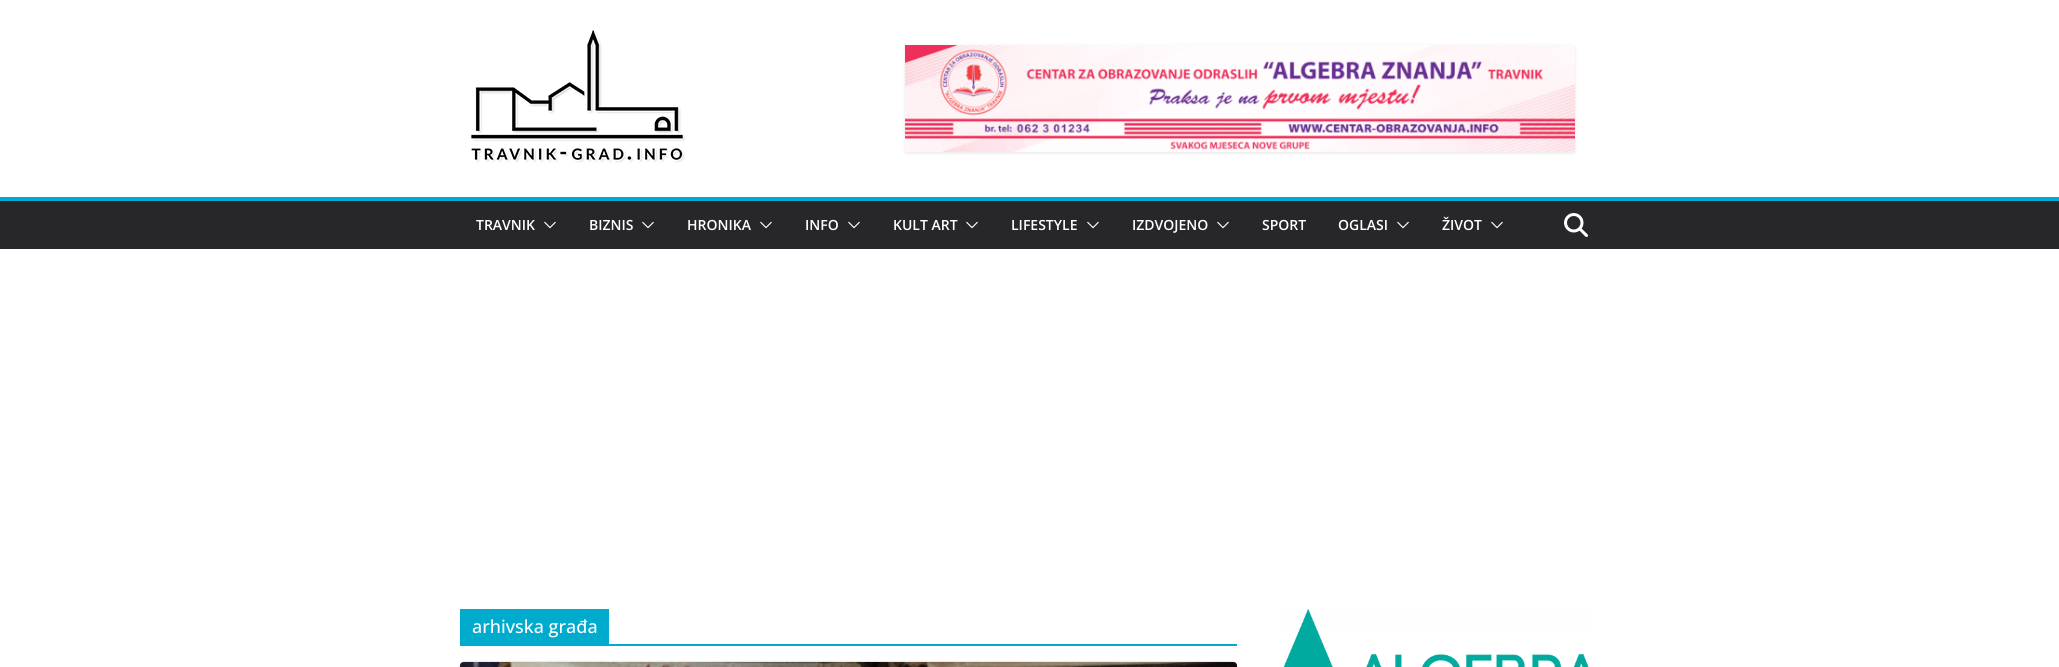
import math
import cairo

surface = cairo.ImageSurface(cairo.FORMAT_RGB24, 2059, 667)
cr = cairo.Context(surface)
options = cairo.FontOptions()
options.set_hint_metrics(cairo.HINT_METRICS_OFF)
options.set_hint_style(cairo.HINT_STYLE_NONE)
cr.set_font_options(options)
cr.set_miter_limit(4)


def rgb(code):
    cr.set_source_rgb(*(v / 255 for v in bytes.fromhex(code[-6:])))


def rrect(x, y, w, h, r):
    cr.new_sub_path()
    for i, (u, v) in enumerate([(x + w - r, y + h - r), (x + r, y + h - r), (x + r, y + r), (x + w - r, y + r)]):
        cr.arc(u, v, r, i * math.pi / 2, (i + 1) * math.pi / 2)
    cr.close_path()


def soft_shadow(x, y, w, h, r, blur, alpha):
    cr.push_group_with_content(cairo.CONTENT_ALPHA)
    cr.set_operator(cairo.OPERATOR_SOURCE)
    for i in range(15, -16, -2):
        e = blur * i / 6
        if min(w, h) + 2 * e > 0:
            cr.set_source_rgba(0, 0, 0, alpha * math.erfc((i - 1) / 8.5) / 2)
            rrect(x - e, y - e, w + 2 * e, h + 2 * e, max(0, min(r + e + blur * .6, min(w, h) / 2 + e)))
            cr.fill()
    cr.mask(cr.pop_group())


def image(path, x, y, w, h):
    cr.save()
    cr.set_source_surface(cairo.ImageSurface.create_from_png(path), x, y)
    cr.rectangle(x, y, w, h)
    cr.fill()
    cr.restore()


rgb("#ffffff")
cr.paint()
image("img/1.png", 471, 30, 215, 133)
rgb("#000000")
soft_shadow(905, 46, 670, 107, 0, 1.5, 0.1)
image("img/2.png", 905, 45, 670, 107)
rgb("#27272a")
cr.rectangle(0, 201, 2059, 48)
cr.fill()
rgb("#00abcd")
cr.rectangle(0, 197, 2059, 4)
cr.fill()
image("img/3.png", 544, 221, 12, 8)
image("img/3.png", 642, 221, 12, 8)
image("img/3.png", 760, 221, 12, 8)
image("img/3.png", 848, 221, 12, 8)
image("img/3.png", 966, 221, 12, 8)
image("img/3.png", 1087, 221, 12, 8)
image("img/3.png", 1217, 221, 12, 8)
image("img/3.png", 1397, 221, 12, 8)
image("img/3.png", 1491, 221, 12, 8)
image("img/4.png", 1564, 213, 24, 24)
cr.rectangle(460, 644, 777, 2)
cr.fill()
cr.rectangle(460, 609, 149, 35)
cr.fill()
rgb("#000000")
soft_shadow(460, 662, 777, 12, 4, 1, 0.24)
image("img/5.png", 460, 662, 777, 5)
image("img/6.png", 1283, 609, 306, 58)
cr.select_font_face("Open Sans SemiBold")
cr.set_font_size(14)
rgb("#ffffff")
for x, y, s in [
    (476, 230, "TRAVNIK"),
    (589, 230, "BIZNIS"),
    (687, 230, "HRONIKA"),
    (805, 230, "INFO"),
    (893, 230, "KULT ART"),
    (1011, 230, "LIFESTYLE"),
    (1132, 230, "IZDVOJENO"),
    (1262, 230, "SPORT"),
    (1338, 230, "OGLASI"),
    (1442, 230, "ŽIVOT"),
]:
    cr.move_to(x, y)
    cr.show_text(s)
cr.select_font_face("Open Sans Medium")
cr.set_font_size(18)
cr.move_to(472, 633)
cr.show_text("arhivska građa")
surface.write_to_png("page.png")
